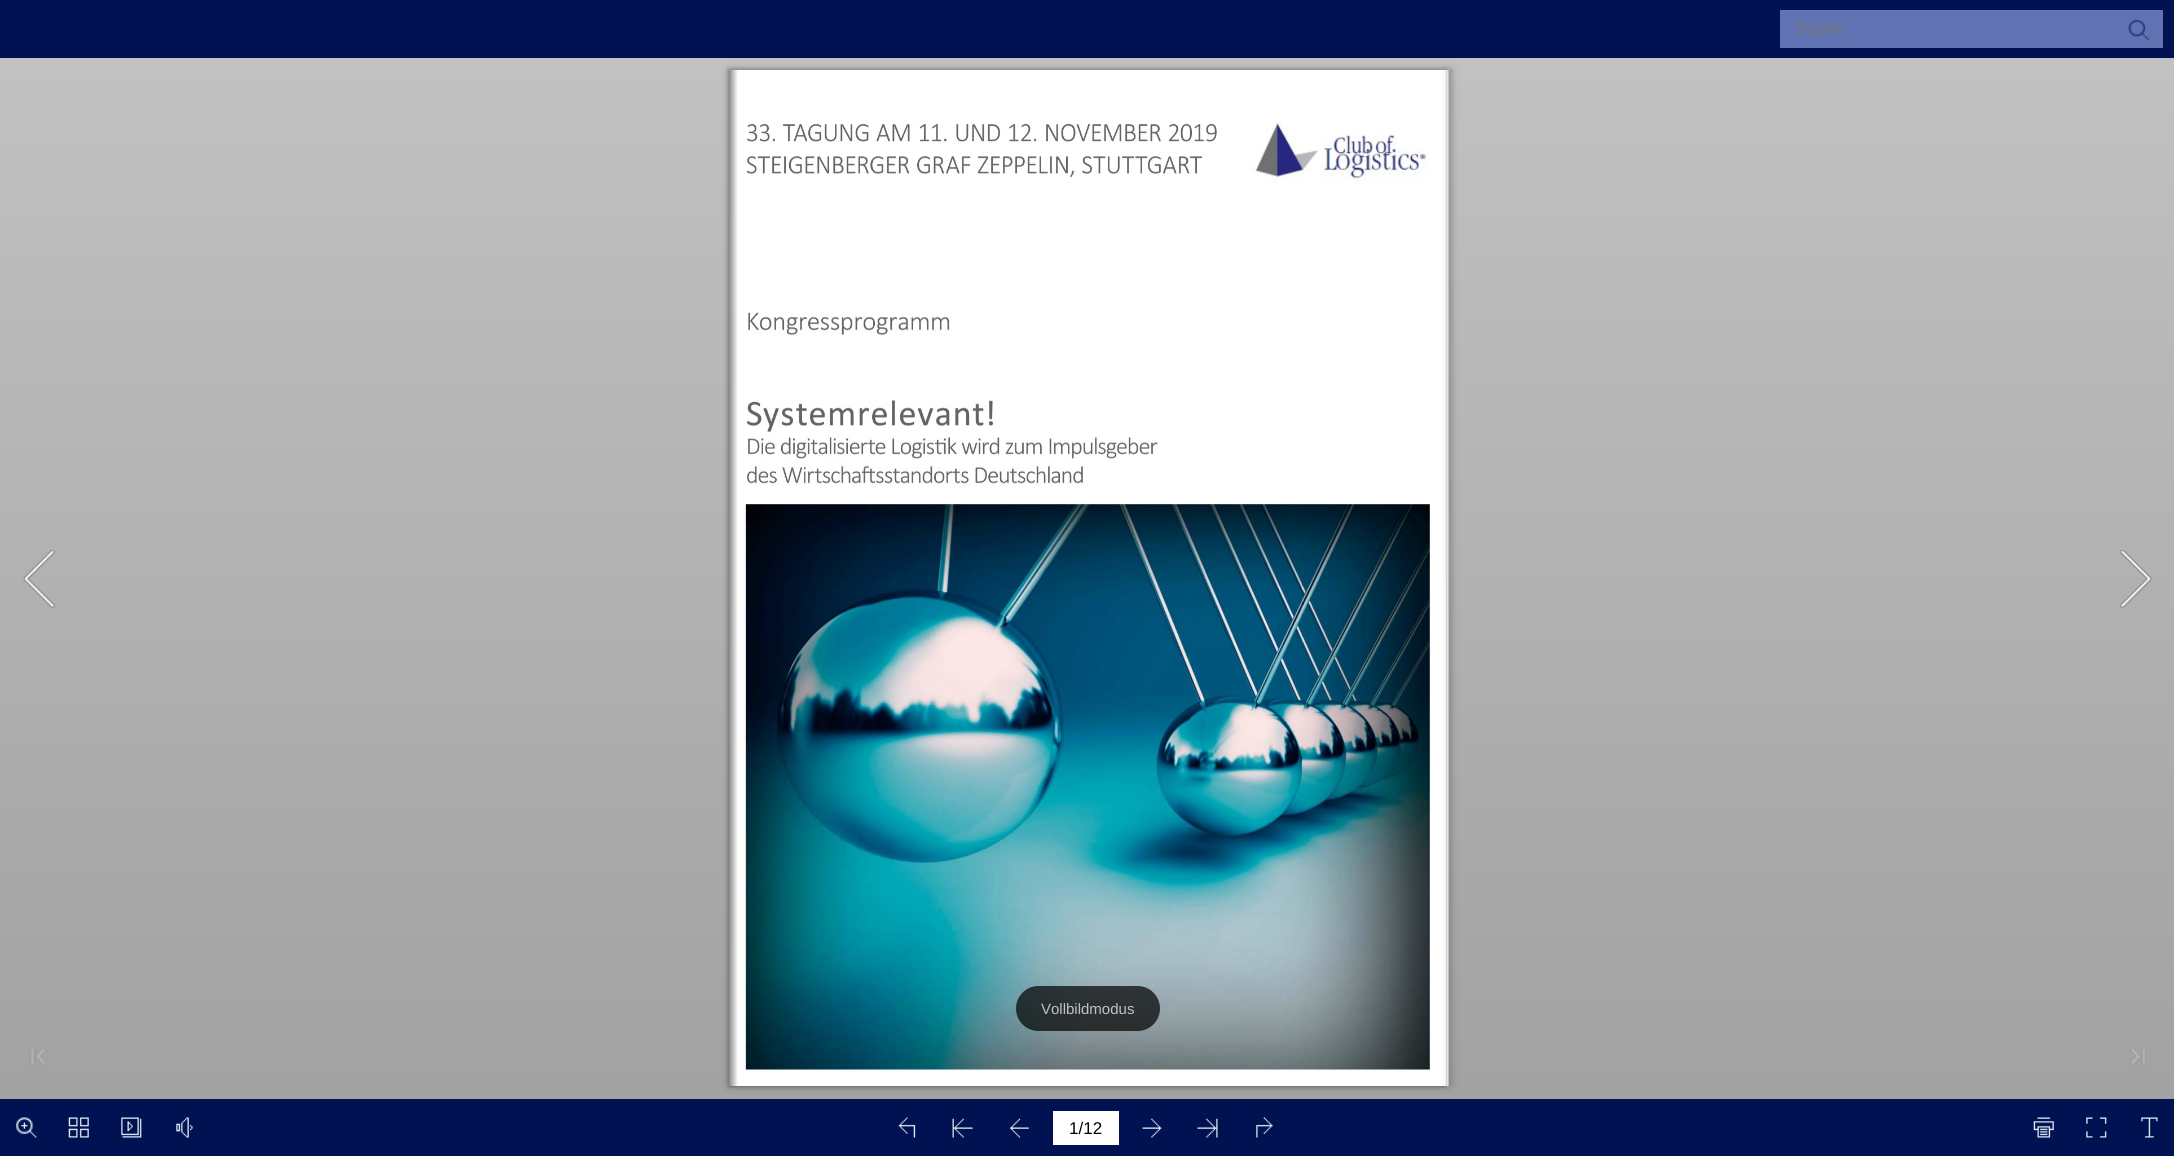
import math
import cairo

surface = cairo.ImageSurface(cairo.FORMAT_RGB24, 2174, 1156)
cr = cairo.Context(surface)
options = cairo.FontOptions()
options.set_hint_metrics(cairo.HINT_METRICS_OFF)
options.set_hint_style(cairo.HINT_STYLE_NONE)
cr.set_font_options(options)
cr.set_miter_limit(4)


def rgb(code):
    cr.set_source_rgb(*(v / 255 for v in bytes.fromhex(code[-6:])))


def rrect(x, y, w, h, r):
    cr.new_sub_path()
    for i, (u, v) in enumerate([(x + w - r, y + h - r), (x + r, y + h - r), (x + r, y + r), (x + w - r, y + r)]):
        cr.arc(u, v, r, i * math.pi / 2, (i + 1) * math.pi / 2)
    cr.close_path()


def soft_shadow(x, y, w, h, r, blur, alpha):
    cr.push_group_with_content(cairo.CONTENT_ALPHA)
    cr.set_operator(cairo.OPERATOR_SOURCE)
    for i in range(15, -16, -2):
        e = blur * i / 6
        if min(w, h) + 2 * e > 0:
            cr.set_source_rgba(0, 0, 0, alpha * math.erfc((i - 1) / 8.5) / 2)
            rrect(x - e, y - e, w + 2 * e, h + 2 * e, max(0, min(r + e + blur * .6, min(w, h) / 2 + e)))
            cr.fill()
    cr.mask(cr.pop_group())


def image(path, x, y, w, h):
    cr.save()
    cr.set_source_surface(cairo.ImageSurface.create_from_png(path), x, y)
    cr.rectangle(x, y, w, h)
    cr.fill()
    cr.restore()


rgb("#ffffff")
cr.paint()
rgb("#001251")
cr.rectangle(0, 0, 2174, 58)
cr.fill()
rgb("#6072b1")
cr.rectangle(1780, 10, 383, 38)
cr.fill()
image("img/1.png", 2128, 19, 21, 22)
gradient = cairo.LinearGradient(1088, 0, 1088, 1156)
gradient.add_color_stop_rgba(0, 0.765, 0.765, 0.765, 1)
gradient.add_color_stop_rgba(1, 0.627, 0.627, 0.627, 1)
cr.set_source(gradient)
cr.rectangle(0, 58, 2174, 1041)
cr.fill()
image("img/2.png", 23, 550, 33, 58)
image("img/3.png", 2120, 550, 32, 58)
rgb("#282828")
soft_shadow(729, 70, 717, 1016, 0, 3, 0.7)
image("img/7.png", 1427, 70, 20, 1017)
image("img/5.png", 738, 70, 708, 1016)
rgb("#7d7d7d")
soft_shadow(1449, 70, 3, 1016, 0, 3.5, 0.7)
image("img/4.png", 1446, 70, 3, 1017)
gradient = cairo.LinearGradient(729, 578, 738, 578)
gradient.add_color_stop_rgba(0, 0.541, 0.541, 0.541, 1)
gradient.add_color_stop_rgba(1, 1, 1, 1, 1)
cr.set_source(gradient)
cr.rectangle(729, 70, 9, 1016)
cr.fill()
image("img/6.png", 729, 1086, 20, 1)
cr.set_source_rgba(0, 0, 0, 0.7)
rrect(1016, 986, 144, 45, 22.5)
cr.fill()
image("img/8.png", 30, 1049, 16, 16)
image("img/9.png", 2130, 1048, 16, 17)
rgb("#001251")
cr.rectangle(0, 1099, 2174, 57)
cr.fill()
image("img/10.png", 16, 1117, 21, 21)
image("img/11.png", 68, 1117, 21, 21)
image("img/12.png", 121, 1117, 21, 21)
image("img/13.png", 176, 1117, 17, 21)
image("img/14.png", 898, 1117, 18, 21)
image("img/15.png", 952, 1118, 21, 20)
image("img/16.png", 1009, 1118, 20, 20)
rgb("#ffffff")
cr.rectangle(1053, 1111, 66, 34)
cr.fill()
image("img/17.png", 1142, 1118, 20, 20)
image("img/18.png", 1197, 1118, 21, 20)
image("img/19.png", 1256, 1117, 17, 21)
image("img/20.png", 2033, 1117, 21, 21)
image("img/21.png", 2086, 1117, 21, 21)
image("img/22.png", 2141, 1117, 17, 21)
cr.select_font_face("Liberation Sans")
cr.set_font_size(17)
rgb("#757575")
cr.move_to(1795, 34)
cr.show_text("Suche")
cr.set_font_size(15)
rgb("#bfc1c2")
cr.move_to(1041, 1014)
cr.show_text("Vollbildmodus")
cr.set_font_size(17)
rgb("#000000")
cr.move_to(1069, 1134)
cr.show_text("1/12")
surface.write_to_png("page.png")
